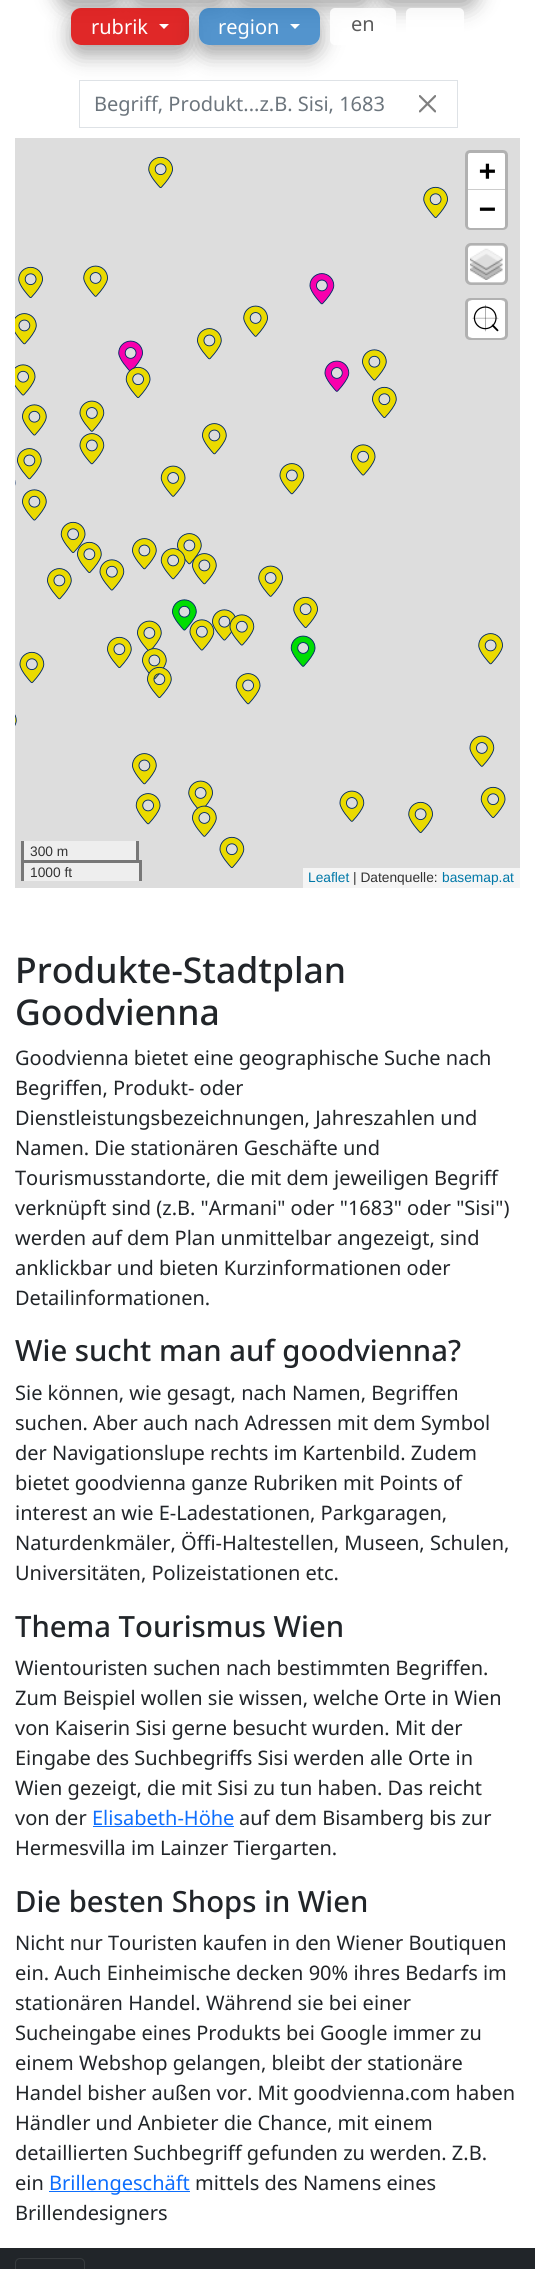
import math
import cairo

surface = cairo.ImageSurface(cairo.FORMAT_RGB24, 535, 2269)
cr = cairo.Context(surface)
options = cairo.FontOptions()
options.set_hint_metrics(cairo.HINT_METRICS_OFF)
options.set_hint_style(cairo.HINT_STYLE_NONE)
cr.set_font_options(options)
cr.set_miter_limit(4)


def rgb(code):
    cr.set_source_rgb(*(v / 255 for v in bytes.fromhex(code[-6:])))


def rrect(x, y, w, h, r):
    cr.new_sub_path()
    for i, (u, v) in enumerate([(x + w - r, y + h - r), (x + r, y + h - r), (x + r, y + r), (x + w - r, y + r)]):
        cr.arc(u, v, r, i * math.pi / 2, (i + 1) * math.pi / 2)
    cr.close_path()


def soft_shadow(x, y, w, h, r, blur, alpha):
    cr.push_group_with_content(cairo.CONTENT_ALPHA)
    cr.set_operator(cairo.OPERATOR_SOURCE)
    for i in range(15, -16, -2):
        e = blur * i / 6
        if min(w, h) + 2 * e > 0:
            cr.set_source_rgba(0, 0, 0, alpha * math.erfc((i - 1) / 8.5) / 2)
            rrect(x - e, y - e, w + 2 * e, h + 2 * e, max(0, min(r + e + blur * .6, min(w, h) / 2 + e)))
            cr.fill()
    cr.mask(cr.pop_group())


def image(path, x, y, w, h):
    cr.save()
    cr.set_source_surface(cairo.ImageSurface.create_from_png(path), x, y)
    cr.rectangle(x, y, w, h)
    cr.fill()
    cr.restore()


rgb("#ffffff")
cr.paint()
rgb("#000000")
soft_shadow(59, -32, 62, 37, 10, 12.5, 0.19)
soft_shadow(59, -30, 62, 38, 10, 10, 0.2)
soft_shadow(131, -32, 95, 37, 10, 12.5, 0.19)
soft_shadow(131, -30, 95, 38, 10, 10, 0.2)
soft_shadow(236, -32, 134, 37, 10, 12.5, 0.19)
soft_shadow(236, -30, 134, 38, 10, 10, 0.2)
soft_shadow(380, -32, 96, 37, 10, 12.5, 0.19)
soft_shadow(380, -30, 96, 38, 10, 10, 0.2)
cr.save()
cr.set_fill_rule(cairo.FILL_RULE_EVEN_ODD)
cr.new_path()
cr.move_to(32, 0)
cr.line_to(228, 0)
cr.line_to(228, 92)
cr.line_to(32, 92)
cr.close_path()
cr.move_to(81, 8)
cr.line_to(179, 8)
cr.curve_to(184.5, 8, 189, 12.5, 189, 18)
cr.line_to(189, 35)
cr.curve_to(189, 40.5, 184.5, 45, 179, 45)
cr.line_to(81, 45)
cr.curve_to(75.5, 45, 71, 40.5, 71, 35)
cr.line_to(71, 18)
cr.curve_to(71, 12.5, 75.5, 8, 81, 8)
cr.close_path()
cr.clip()
soft_shadow(71, 15, 118, 38, 10, 12.5, 0.19)
cr.restore()
cr.save()
cr.set_fill_rule(cairo.FILL_RULE_EVEN_ODD)
cr.new_path()
cr.move_to(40, 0)
cr.line_to(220, 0)
cr.line_to(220, 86)
cr.line_to(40, 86)
cr.close_path()
cr.move_to(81, 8)
cr.line_to(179, 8)
cr.curve_to(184.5, 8, 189, 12.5, 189, 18)
cr.line_to(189, 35)
cr.curve_to(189, 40.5, 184.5, 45, 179, 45)
cr.line_to(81, 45)
cr.curve_to(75.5, 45, 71, 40.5, 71, 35)
cr.line_to(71, 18)
cr.curve_to(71, 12.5, 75.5, 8, 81, 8)
cr.close_path()
cr.clip()
soft_shadow(71, 18, 118, 37, 10, 10, 0.2)
cr.restore()
cr.set_source_rgba(0.867, 0.086, 0.086, 0.92)
rrect(71, 8, 118, 37, 10)
cr.fill()
rgb("#ffffff")
cr.new_path()
cr.move_to(159, 24)
cr.line_to(169, 24)
cr.line_to(164, 29)
cr.close_path()
cr.fill()
cr.save()
cr.set_fill_rule(cairo.FILL_RULE_EVEN_ODD)
cr.new_path()
cr.move_to(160, 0)
cr.line_to(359, 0)
cr.line_to(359, 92)
cr.line_to(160, 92)
cr.close_path()
cr.move_to(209, 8)
cr.line_to(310, 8)
cr.curve_to(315.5, 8, 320, 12.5, 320, 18)
cr.line_to(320, 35)
cr.curve_to(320, 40.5, 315.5, 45, 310, 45)
cr.line_to(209, 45)
cr.curve_to(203.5, 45, 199, 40.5, 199, 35)
cr.line_to(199, 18)
cr.curve_to(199, 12.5, 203.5, 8, 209, 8)
cr.close_path()
cr.clip()
rgb("#000000")
soft_shadow(199, 15, 121, 38, 10, 12.5, 0.19)
cr.restore()
cr.save()
cr.set_fill_rule(cairo.FILL_RULE_EVEN_ODD)
cr.new_path()
cr.move_to(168, 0)
cr.line_to(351, 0)
cr.line_to(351, 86)
cr.line_to(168, 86)
cr.close_path()
cr.move_to(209, 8)
cr.line_to(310, 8)
cr.curve_to(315.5, 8, 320, 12.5, 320, 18)
cr.line_to(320, 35)
cr.curve_to(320, 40.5, 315.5, 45, 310, 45)
cr.line_to(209, 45)
cr.curve_to(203.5, 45, 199, 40.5, 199, 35)
cr.line_to(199, 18)
cr.curve_to(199, 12.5, 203.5, 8, 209, 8)
cr.close_path()
cr.clip()
rgb("#000000")
soft_shadow(199, 18, 121, 37, 10, 10, 0.2)
cr.restore()
cr.set_source_rgba(0.118, 0.451, 0.745, 0.76)
rrect(199, 8, 121, 37, 10)
cr.fill()
rgb("#ffffff")
cr.new_path()
cr.move_to(290, 24)
cr.line_to(300, 24)
cr.line_to(295, 29)
cr.close_path()
cr.fill()
cr.set_source_rgba(1, 1, 1, 0.84)
rrect(330, 8, 66, 37, 5)
cr.fill()
rrect(406, 8, 58, 37, 5)
cr.fill()
cr.rectangle(79.5, 80.5, 378, 47)
rgb("#dee2e6")
cr.set_line_width(1)
cr.stroke()
image("img/1.png", 419, 95, 17, 18)
rgb("#dddddd")
cr.rectangle(15, 138, 505, 750)
cr.fill()
rgb("#eeeeee")
cr.rectangle(24, 863, 115, 18)
cr.fill()
image("img/2.png", 148, 156, 25, 32)
image("img/2.png", 423, 186, 25, 32)
image("img/2.png", 18, 266, 25, 32)
image("img/3.png", 83, 265, 25, 32)
image("img/4.png", 309, 273, 26, 32)
image("img/5.png", 15, 313, 22, 32)
image("img/6.png", 118, 340, 25, 32)
image("img/7.png", 197, 328, 25, 32)
image("img/3.png", 243, 305, 25, 32)
image("img/8.png", 324, 360, 26, 32)
image("img/9.png", 362, 349, 25, 32)
image("img/10.png", 15, 364, 21, 32)
image("img/11.png", 125, 366, 26, 32)
image("img/9.png", 22, 404, 25, 32)
image("img/12.png", 79, 400, 26, 32)
image("img/7.png", 202, 423, 25, 32)
image("img/13.png", 372, 386, 25, 32)
image("img/14.png", 15, 480, 1, 6)
image("img/7.png", 17, 448, 25, 32)
image("img/15.png", 79, 433, 26, 32)
image("img/16.png", 160, 465, 26, 32)
image("img/15.png", 279, 463, 26, 32)
image("img/17.png", 350, 444, 26, 32)
image("img/9.png", 22, 489, 25, 32)
image("img/7.png", 47, 568, 25, 32)
image("img/18.png", 60, 521, 26, 32)
image("img/19.png", 77, 541, 25, 32)
image("img/20.png", 99, 559, 26, 32)
image("img/7.png", 132, 538, 25, 32)
image("img/7.png", 177, 533, 25, 32)
image("img/21.png", 160, 548, 26, 32)
image("img/22.png", 192, 553, 25, 32)
image("img/3.png", 258, 565, 25, 32)
image("img/23.png", 137, 620, 25, 31)
image("img/24.png", 172, 599, 25, 32)
image("img/9.png", 212, 609, 25, 32)
image("img/25.png", 189, 619, 26, 32)
image("img/26.png", 229, 614, 26, 32)
image("img/2.png", 293, 596, 25, 32)
image("img/27.png", 478, 633, 25, 32)
image("img/28.png", 19, 651, 26, 32)
image("img/13.png", 107, 636, 25, 32)
image("img/29.png", 142, 648, 25, 32)
image("img/30.png", 290, 635, 26, 32)
image("img/31.png", 147, 666, 25, 32)
image("img/32.png", 235, 673, 26, 32)
image("img/33.png", 15, 714, 2, 12)
image("img/7.png", 132, 753, 25, 32)
image("img/12.png", 469, 735, 26, 32)
image("img/32.png", 135, 793, 26, 32)
image("img/34.png", 188, 780, 25, 29)
image("img/12.png", 339, 790, 26, 32)
image("img/2.png", 408, 801, 25, 32)
image("img/18.png", 480, 786, 26, 32)
image("img/35.png", 192, 805, 25, 32)
image("img/28.png", 219, 836, 26, 32)
rrect(466.5, 151.5, 40, 77, 3.5)
rgb("#b1b1b1")
cr.set_line_width(3)
cr.stroke()
rgb("#ffffff")
cr.new_path()
cr.move_to(470.5, 153)
cr.line_to(502.5, 153)
cr.curve_to(504, 153, 505, 154, 505, 155.5)
cr.line_to(505, 190)
cr.line_to(468, 190)
cr.line_to(468, 155.5)
cr.curve_to(468, 154, 469, 153, 470.5, 153)
cr.close_path()
cr.fill()
rgb("#cccccc")
cr.rectangle(468, 189, 37, 1)
cr.fill()
rgb("#ffffff")
cr.new_path()
cr.move_to(468, 190)
cr.line_to(505, 190)
cr.line_to(505, 225.5)
cr.curve_to(505, 227, 504, 228, 502.5, 228)
cr.line_to(470.5, 228)
cr.curve_to(469, 228, 468, 227, 468, 225.5)
cr.close_path()
cr.fill()
rrect(468, 245, 37, 38, 4)
cr.fill()
rrect(466.5, 244.5, 40, 39, 4.5)
cr.set_source_rgba(0, 0, 0, 0.2)
cr.stroke()
image("img/36.png", 470, 248, 33, 32)
rgb("#ffffff")
rrect(468, 300, 37, 38, 2.5)
cr.fill()
rrect(466.5, 299.5, 40, 39, 3.5)
cr.set_source_rgba(0, 0, 0, 0.2)
cr.stroke()
rgb("#ffffff")
rrect(468, 300, 37, 38, 5)
cr.fill()
image("img/37.png", 472, 304, 27, 28)
for x, y, w, h, color in [
    (24, 841, 112, 19, "#eeeeee"),
    (136, 841, 3, 22, "#777777"),
    (21, 841, 3, 22, "#777777"),
    (21, 860, 120, 3, "#777777"),
    (139, 860, 3, 21, "#777777"),
    (21, 860, 3, 21, "#777777"),
    (303, 868, 217, 20, "#f5f5f5"),
    (93, 1826, 141, 1, "#0d6efd"),
    (49, 2191, 141, 1, "#0d6efd"),
    (0, 2248, 535, 21, "#212529"),
]:
    rgb(color)
    cr.rectangle(x, y, w, h)
    cr.fill()
rrect(15.5, 2258.5, 69, 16, 4.5)
rgb("#373b3e")
cr.set_line_width(1)
cr.stroke()
cr.select_font_face("Noto Sans")
cr.set_font_size(20)
rgb("#ffffff")
cr.move_to(91, 34)
cr.show_text("rubrik")
cr.move_to(218, 34)
cr.show_text("region")
rgb("#5b5b5b")
cr.move_to(351, 31)
cr.show_text("en")
rgb("#6c757d")
cr.move_to(94, 111)
cr.show_text("Begriff, Produkt...z.B. Sisi, 1683")
cr.select_font_face("DejaVu Sans Mono", cairo.FONT_SLANT_NORMAL, cairo.FONT_WEIGHT_BOLD)
cr.set_font_size(28)
rgb("#000000")
cr.move_to(479, 180)
cr.show_text("+")
cr.move_to(479, 218)
cr.show_text("−")
cr.select_font_face("Liberation Sans")
cr.set_font_size(13.75)
rgb("#333333")
cr.move_to(30, 856)
cr.show_text("300 m")
cr.move_to(30, 877)
cr.show_text("1000 ft")
rgb("#0078a8")
cr.move_to(308, 882)
cr.show_text("Leaflet")
rgb("#333333")
cr.move_to(353, 882)
cr.show_text("| Datenquelle:")
rgb("#0078a8")
cr.move_to(442, 882)
cr.show_text("basemap.at")
cr.select_font_face("Noto Sans Medium")
cr.set_font_size(35.5)
rgb("#212529")
cr.move_to(15, 983)
cr.show_text("Produkte-Stadtplan")
cr.move_to(15, 1025)
cr.show_text("Goodvienna")
cr.select_font_face("Noto Sans")
cr.set_font_size(20)
for x, y, s in [
    (15, 1065, "Goodvienna bietet eine geographische Suche nach"),
    (15, 1095, "Begriffen, Produkt- oder"),
    (15, 1125, "Dienstleistungsbezeichnungen, Jahreszahlen und"),
    (15, 1155, "Namen. Die stationären Geschäfte und"),
    (15, 1185, "Tourismusstandorte, die mit dem jeweiligen Begriff"),
    (15, 1215, "verknüpft sind (z.B. \"Armani\" oder \"1683\" oder \"Sisi\")"),
    (15, 1245, "werden auf dem Plan unmittelbar angezeigt, sind"),
    (15, 1275, "anklickbar und bieten Kurzinformationen oder"),
    (15, 1305, "Detailinformationen."),
]:
    cr.move_to(x, y)
    cr.show_text(s)
cr.select_font_face("Noto Sans Medium")
cr.set_font_size(29.25)
cr.move_to(15, 1361)
cr.show_text("Wie sucht man auf goodvienna?")
cr.select_font_face("Noto Sans")
cr.set_font_size(20)
for x, y, s in [
    (15, 1400, "Sie können, wie gesagt, nach Namen, Begriffen"),
    (15, 1430, "suchen. Aber auch nach Adressen mit dem Symbol"),
    (15, 1460, "der Navigationslupe rechts im Kartenbild. Zudem"),
    (15, 1490, "bietet goodvienna ganze Rubriken mit Points of"),
    (15, 1520, "interest an wie E-Ladestationen, Parkgaragen,"),
    (15, 1550, "Naturdenkmäler, Öffi-Haltestellen, Museen, Schulen,"),
    (15, 1580, "Universitäten, Polizeistationen etc."),
]:
    cr.move_to(x, y)
    cr.show_text(s)
cr.select_font_face("Noto Sans Medium")
cr.set_font_size(29.25)
cr.move_to(15, 1637)
cr.show_text("Thema Tourismus Wien")
cr.select_font_face("Noto Sans")
cr.set_font_size(20)
for x, y, s in [
    (15, 1675, "Wientouristen suchen nach bestimmten Begriffen."),
    (15, 1705, "Zum Beispiel wollen sie wissen, welche Orte in Wien"),
    (15, 1735, "von Kaiserin Sisi gerne besucht wurden. Mit der"),
    (15, 1765, "Eingabe des Suchbegriffs Sisi werden alle Orte in"),
    (15, 1795, "Wien gezeigt, die mit Sisi zu tun haben. Das reicht"),
    (15, 1825, "von der"),
]:
    cr.move_to(x, y)
    cr.show_text(s)
rgb("#0d6efd")
cr.move_to(92, 1825)
cr.show_text("Elisabeth-Höhe")
rgb("#212529")
cr.move_to(239, 1825)
cr.show_text("auf dem Bisamberg bis zur")
cr.move_to(15, 1855)
cr.show_text("Hermesvilla im Lainzer Tiergarten.")
cr.select_font_face("Noto Sans Medium")
cr.set_font_size(29.25)
cr.move_to(15, 1912)
cr.show_text("Die besten Shops in Wien")
cr.select_font_face("Noto Sans")
cr.set_font_size(20)
for x, y, s in [
    (15, 1950, "Nicht nur Touristen kaufen in den Wiener Boutiquen"),
    (15, 1980, "ein. Auch Einheimische decken 90% ihres Bedarfs im"),
    (15, 2010, "stationären Handel. Während sie bei einer"),
    (15, 2040, "Sucheingabe eines Produkts bei Google immer zu"),
    (15, 2070, "einem Webshop gelangen, bleibt der stationäre"),
    (15, 2100, "Handel bisher außen vor. Mit goodvienna.com haben"),
    (15, 2130, "Händler und Anbieter die Chance, mit einem"),
    (15, 2160, "detaillierten Suchbegriff gefunden zu werden. Z.B."),
    (15, 2190, "ein"),
]:
    cr.move_to(x, y)
    cr.show_text(s)
rgb("#0d6efd")
cr.move_to(49, 2190)
cr.show_text("Brillengeschäft")
rgb("#212529")
cr.move_to(195, 2190)
cr.show_text("mittels des Namens eines")
cr.move_to(15, 2220)
cr.show_text("Brillendesigners")
surface.write_to_png("page.png")
